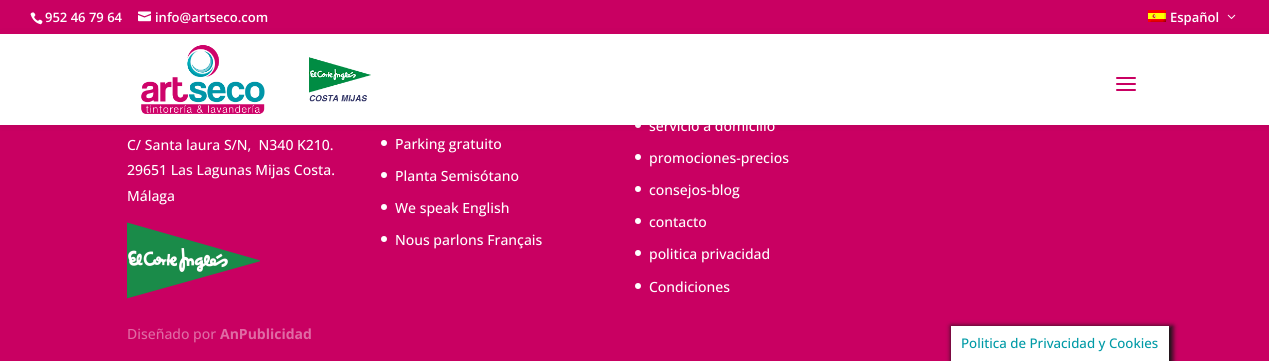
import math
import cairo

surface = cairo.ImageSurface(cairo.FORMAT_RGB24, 1269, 361)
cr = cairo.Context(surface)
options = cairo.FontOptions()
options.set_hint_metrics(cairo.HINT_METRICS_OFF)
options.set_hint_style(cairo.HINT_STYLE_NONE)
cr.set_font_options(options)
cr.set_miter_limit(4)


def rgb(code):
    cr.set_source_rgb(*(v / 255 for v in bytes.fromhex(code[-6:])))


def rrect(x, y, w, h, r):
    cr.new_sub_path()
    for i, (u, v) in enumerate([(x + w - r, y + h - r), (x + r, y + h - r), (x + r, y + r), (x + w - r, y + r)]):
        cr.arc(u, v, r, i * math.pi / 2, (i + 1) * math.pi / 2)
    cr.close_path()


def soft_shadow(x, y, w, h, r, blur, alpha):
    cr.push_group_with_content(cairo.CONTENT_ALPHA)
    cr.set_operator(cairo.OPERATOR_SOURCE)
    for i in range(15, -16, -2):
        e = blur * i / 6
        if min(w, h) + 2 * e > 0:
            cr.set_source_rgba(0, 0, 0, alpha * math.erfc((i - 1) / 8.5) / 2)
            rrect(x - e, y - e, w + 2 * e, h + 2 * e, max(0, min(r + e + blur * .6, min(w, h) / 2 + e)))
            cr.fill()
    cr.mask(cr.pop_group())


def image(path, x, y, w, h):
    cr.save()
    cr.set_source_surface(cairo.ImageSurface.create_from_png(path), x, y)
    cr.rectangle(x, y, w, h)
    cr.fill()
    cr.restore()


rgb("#c90062")
cr.paint()
rgb("#ffffff")
cr.arc(638, 125, 3, 0, 2 * math.pi)
cr.fill()
rgb("#000000")
soft_shadow(0, 34, 1269, 91, 0, 3.5, 0.1)
rgb("#c90062")
cr.rectangle(0, 30, 1269, 4)
cr.fill()
image("img/1.png", 30, 12, 13, 13)
image("img/2.png", 138, 11, 13, 11)
image("img/3.png", 1148, 10, 18, 12)
image("img/4.png", 1227, 14, 9, 5)
rgb("#ffffff")
cr.rectangle(0, 34, 1269, 91)
cr.fill()
image("img/5.png", 141, 45, 230, 69)
image("img/6.png", 1116, 77, 20, 14)
image("img/7.png", 127, 222, 133, 77)
cr.arc(384, 143, 3, 0, 2 * math.pi)
cr.fill()
cr.arc(384, 175, 3, 0, 2 * math.pi)
cr.fill()
cr.arc(384, 207, 3, 0, 2 * math.pi)
cr.fill()
cr.arc(384, 239, 3, 0, 2 * math.pi)
cr.fill()
cr.arc(638, 157, 3, 0, 2 * math.pi)
cr.fill()
cr.arc(638, 189, 3, 0, 2 * math.pi)
cr.fill()
cr.arc(638, 221, 3, 0, 2 * math.pi)
cr.fill()
cr.arc(638, 253, 3, 0, 2 * math.pi)
cr.fill()
cr.arc(638, 286, 3, 0, 2 * math.pi)
cr.fill()
rgb("#161616")
soft_shadow(951, 326, 222, 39, 0, 2.5, 1)
rgb("#ffffff")
cr.rectangle(951, 326, 218, 35)
cr.fill()
cr.select_font_face("Open Sans SemiBold")
cr.set_font_size(13)
for x, y, s in [
    (45, 22, "952 46 79 64"),
    (155, 22, "info@artseco.com"),
    (1170, 22, "Español"),
]:
    cr.move_to(x, y)
    cr.show_text(s)
cr.select_font_face("Open Sans Medium")
cr.set_font_size(14)
for x, y, s in [
    (127, 150, "C/ Santa laura S/N,  N340 K210."),
    (127, 175, "29651 Las Lagunas Mijas Costa."),
    (127, 201, "Málaga"),
    (395, 149, "Parking gratuito"),
    (395, 181, "Planta Semisótano"),
    (395, 213, "We speak English"),
    (395, 245, "Nous parlons Français"),
    (649, 131, "servicio a domicilio"),
    (649, 163, "promociones-precios"),
    (649, 195, "consejos-blog"),
    (649, 227, "contacto"),
    (649, 259, "politica privacidad"),
    (649, 292, "Condiciones"),
]:
    cr.move_to(x, y)
    cr.show_text(s)
rgb("#e06ba4")
cr.move_to(127, 339)
cr.show_text("Diseñado por")
cr.select_font_face("Open Sans", cairo.FONT_SLANT_NORMAL, cairo.FONT_WEIGHT_BOLD)
cr.move_to(220, 339)
cr.show_text("AnPublicidad")
cr.select_font_face("Open Sans Medium")
cr.set_font_size(13.3)
rgb("#009aa6")
cr.move_to(961, 348)
cr.show_text("Politica de Privacidad y Cookies")
surface.write_to_png("page.png")
